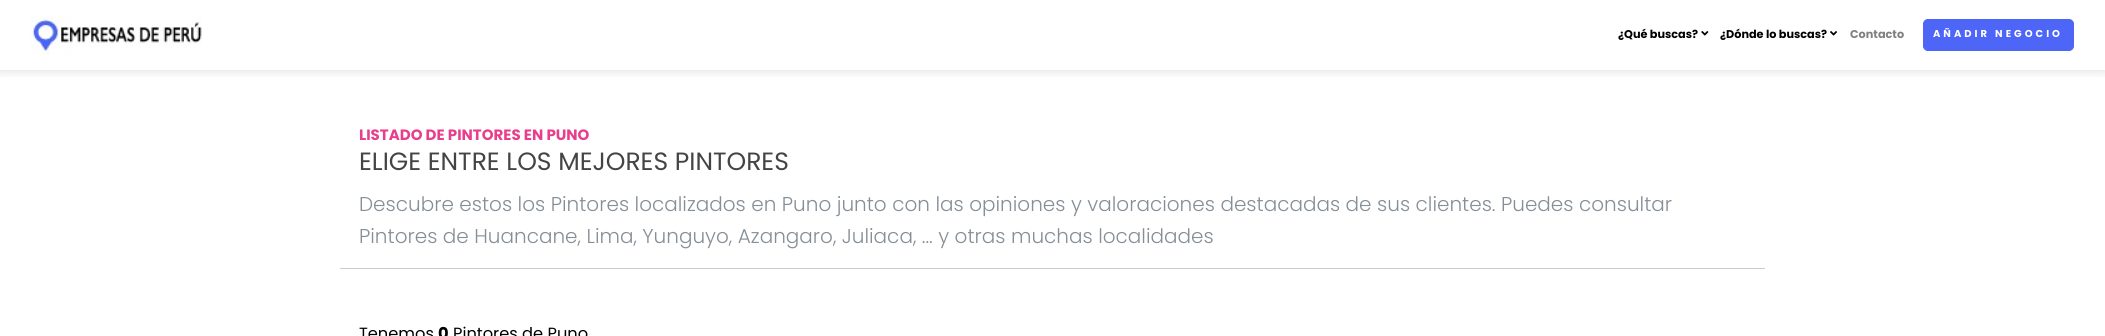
import math
import cairo

surface = cairo.ImageSurface(cairo.FORMAT_RGB24, 2105, 336)
cr = cairo.Context(surface)
options = cairo.FontOptions()
options.set_hint_metrics(cairo.HINT_METRICS_OFF)
options.set_hint_style(cairo.HINT_STYLE_NONE)
cr.set_font_options(options)
cr.set_miter_limit(4)


def rgb(code):
    cr.set_source_rgb(*(v / 255 for v in bytes.fromhex(code[-6:])))


def tracked(x, y, s, letter, word):
    cr.move_to(x, y)
    for ch in s:
        cr.show_text(ch)
        cr.rel_move_to(letter + word * (ch == ' '), 0)


def rrect(x, y, w, h, r):
    cr.new_sub_path()
    for i, (u, v) in enumerate([(x + w - r, y + h - r), (x + r, y + h - r), (x + r, y + r), (x + w - r, y + r)]):
        cr.arc(u, v, r, i * math.pi / 2, (i + 1) * math.pi / 2)
    cr.close_path()


def soft_shadow(x, y, w, h, r, blur, alpha):
    cr.push_group_with_content(cairo.CONTENT_ALPHA)
    cr.set_operator(cairo.OPERATOR_SOURCE)
    for i in range(15, -16, -2):
        e = blur * i / 6
        if min(w, h) + 2 * e > 0:
            cr.set_source_rgba(0, 0, 0, alpha * math.erfc((i - 1) / 8.5) / 2)
            rrect(x - e, y - e, w + 2 * e, h + 2 * e, max(0, min(r + e + blur * .6, min(w, h) / 2 + e)))
            cr.fill()
    cr.mask(cr.pop_group())


def image(path, x, y, w, h):
    cr.save()
    cr.set_source_surface(cairo.ImageSurface.create_from_png(path), x, y)
    cr.rectangle(x, y, w, h)
    cr.fill()
    cr.restore()


rgb("#ffffff")
cr.paint()
cr.save()
cr.rectangle(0, 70, 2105, 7)
cr.clip()
rgb("#000000")
soft_shadow(0, 0, 2105, 70, 0, 6, 0.15)
cr.restore()
image("img/1.png", 31, 16, 171, 39)
image("img/2.png", 1701, 31, 8, 5)
image("img/3.png", 1830, 31, 7, 5)
rgb("#4e66f8")
rrect(1923.5, 19.5, 150, 31, 4.5)
cr.fill_preserve()
cr.set_line_width(1)
cr.stroke()
rgb("#cccccc")
cr.rectangle(340, 268, 1425, 1)
cr.fill()
cr.select_font_face("Poppins", cairo.FONT_SLANT_NORMAL, cairo.FONT_WEIGHT_BOLD)
cr.set_font_size(11.25)
rgb("#000000")
cr.move_to(1618, 38)
cr.show_text("¿Qué buscas?")
cr.move_to(1720, 38)
cr.show_text("¿Dónde lo buscas?")
rgb("#808080")
cr.move_to(1850, 38)
cr.show_text("Contacto")
cr.set_font_size(10)
rgb("#ffffff")
tracked(1933, 37, "AÑADIR NEGOCIO", 3, 0)
cr.set_font_size(15)
rgb("#e83e8c")
cr.move_to(359, 140)
cr.show_text("LISTADO DE PINTORES EN PUNO")
cr.select_font_face("Poppins")
cr.set_font_size(25)
rgb("#444444")
cr.move_to(359, 170)
cr.show_text("ELIGE ENTRE LOS MEJORES PINTORES")
cr.select_font_face("Poppins Light")
cr.set_font_size(20)
rgb("#868e96")
cr.move_to(359, 211)
cr.show_text("Descubre estos los Pintores localizados en Puno junto con las opiniones y valoraciones destacadas de sus clientes. Puedes consultar")
cr.move_to(359, 243)
cr.show_text("Pintores de Huancane, Lima, Yunguyo, Azangaro, Juliaca, ... y otras muchas localidades")
cr.select_font_face("Poppins")
cr.set_font_size(16.25)
rgb("#000000")
cr.move_to(359, 339)
cr.show_text("Tenemos")
cr.select_font_face("Poppins", cairo.FONT_SLANT_NORMAL, cairo.FONT_WEIGHT_BOLD)
cr.move_to(438, 339)
cr.show_text("0")
cr.select_font_face("Poppins")
cr.move_to(453, 339)
cr.show_text("Pintores de Puno")
surface.write_to_png("page.png")
